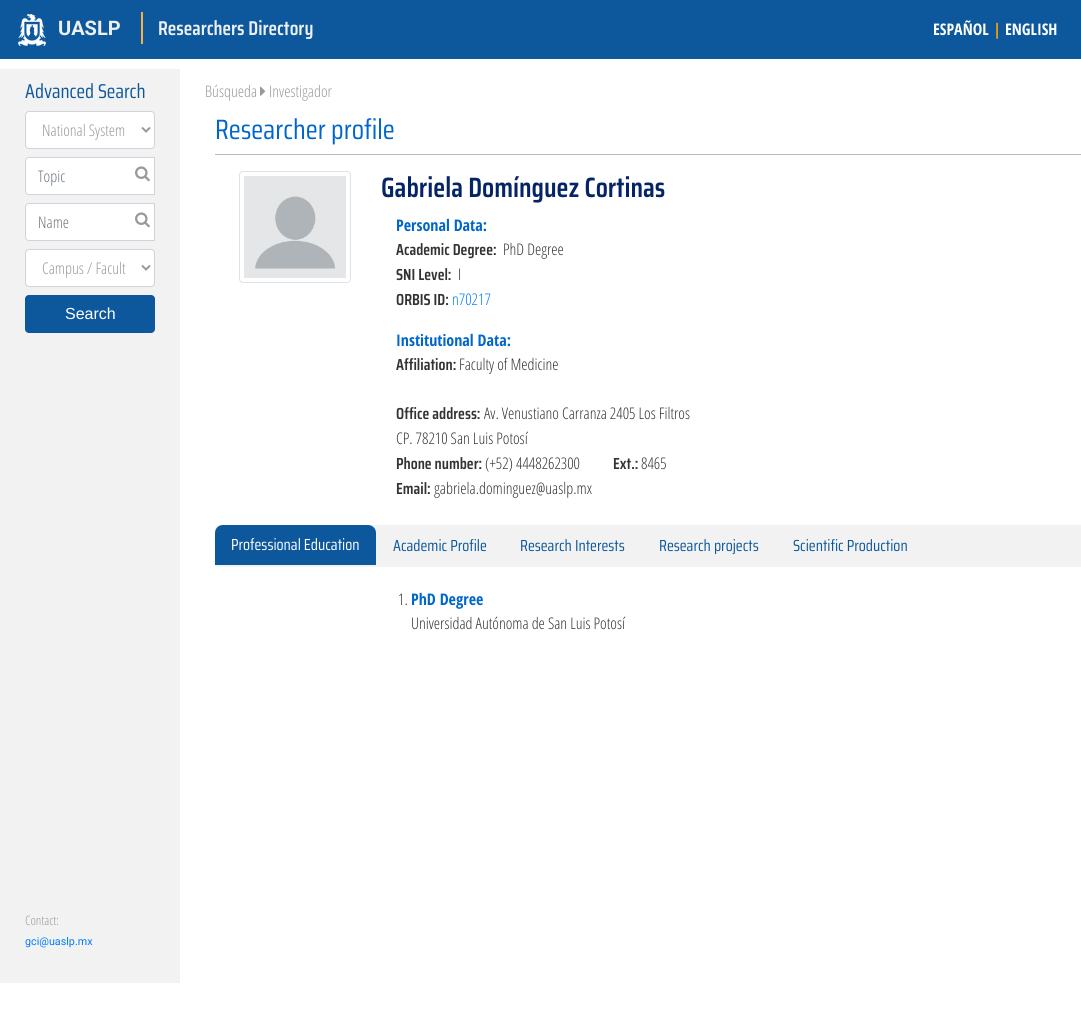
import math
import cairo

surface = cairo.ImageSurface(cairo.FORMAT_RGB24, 1081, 1016)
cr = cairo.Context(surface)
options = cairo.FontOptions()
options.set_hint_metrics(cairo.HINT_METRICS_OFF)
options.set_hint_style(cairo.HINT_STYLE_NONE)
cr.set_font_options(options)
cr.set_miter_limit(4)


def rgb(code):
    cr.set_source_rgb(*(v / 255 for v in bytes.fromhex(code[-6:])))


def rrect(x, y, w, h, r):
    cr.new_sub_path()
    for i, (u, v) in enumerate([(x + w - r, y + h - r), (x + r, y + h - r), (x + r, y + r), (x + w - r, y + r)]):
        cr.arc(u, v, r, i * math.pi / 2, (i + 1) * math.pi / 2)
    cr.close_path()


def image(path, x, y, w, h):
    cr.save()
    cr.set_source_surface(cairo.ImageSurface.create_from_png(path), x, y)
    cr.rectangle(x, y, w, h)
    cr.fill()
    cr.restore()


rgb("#ffffff")
cr.paint()
rgb("#0d589c")
cr.rectangle(0, 0, 1081, 59)
cr.fill()
image("img/1.png", 18, 14, 28, 32)
rgb("#f9b040")
cr.rectangle(141, 12, 2, 32)
cr.fill()
rgb("#f2f2f2")
cr.rectangle(0, 69, 180, 914)
cr.fill()
rgb("#ffffff")
rrect(25.5, 111.5, 129, 37, 3.5)
cr.fill_preserve()
rgb("#ced4da")
cr.set_line_width(1)
cr.stroke()
cr.new_path()
cr.move_to(142, 127.5)
cr.line_to(146, 131.5)
cr.line_to(150, 127.5)
rgb("#999999")
cr.set_line_width(2)
cr.stroke()
rgb("#ffffff")
cr.new_path()
cr.move_to(29, 158)
cr.line_to(131, 158)
cr.line_to(131, 194)
cr.line_to(29, 194)
cr.curve_to(27.5, 194, 26, 192.5, 26, 191)
cr.line_to(26, 161)
cr.curve_to(26, 159.5, 27.5, 158, 29, 158)
cr.close_path()
cr.fill()
rgb("#ced4da")
cr.set_fill_rule(cairo.FILL_RULE_EVEN_ODD)
cr.new_path()
cr.move_to(29, 157)
cr.line_to(131, 157)
cr.line_to(131, 195)
cr.line_to(29, 195)
cr.curve_to(27, 195, 25, 193, 25, 191)
cr.line_to(25, 161)
cr.curve_to(25, 159, 27, 157, 29, 157)
cr.close_path()
cr.move_to(29, 158)
cr.line_to(131, 158)
cr.line_to(131, 194)
cr.line_to(29, 194)
cr.curve_to(27, 194, 26, 193, 26, 191)
cr.line_to(26, 161)
cr.curve_to(26, 159, 27, 158, 29, 158)
cr.close_path()
cr.fill()
for x, y, w, h, color in [
    (131, 158, 23, 36, "#ffffff"),
    (131, 157, 24, 1, "#ced4da"),
    (154, 157, 1, 38, "#ced4da"),
    (131, 194, 24, 1, "#ced4da"),
]:
    rgb(color)
    cr.rectangle(x, y, w, h)
    cr.fill()
image("img/2.png", 135, 166, 15, 16)
rgb("#ffffff")
cr.new_path()
cr.move_to(29, 204)
cr.line_to(131, 204)
cr.line_to(131, 240)
cr.line_to(29, 240)
cr.curve_to(27.5, 240, 26, 238.5, 26, 237)
cr.line_to(26, 207)
cr.curve_to(26, 205.5, 27.5, 204, 29, 204)
cr.close_path()
cr.fill()
rgb("#ced4da")
cr.new_path()
cr.move_to(29, 203)
cr.line_to(131, 203)
cr.line_to(131, 241)
cr.line_to(29, 241)
cr.curve_to(27, 241, 25, 239, 25, 237)
cr.line_to(25, 207)
cr.curve_to(25, 205, 27, 203, 29, 203)
cr.close_path()
cr.move_to(29, 204)
cr.line_to(131, 204)
cr.line_to(131, 240)
cr.line_to(29, 240)
cr.curve_to(27, 240, 26, 239, 26, 237)
cr.line_to(26, 207)
cr.curve_to(26, 205, 27, 204, 29, 204)
cr.close_path()
cr.fill()
for x, y, w, h, color in [
    (131, 204, 23, 36, "#ffffff"),
    (131, 203, 24, 1, "#ced4da"),
    (154, 203, 1, 38, "#ced4da"),
    (131, 240, 24, 1, "#ced4da"),
]:
    rgb(color)
    cr.rectangle(x, y, w, h)
    cr.fill()
image("img/2.png", 135, 212, 15, 16)
rgb("#ffffff")
rrect(25.5, 249.5, 129, 37, 3.5)
cr.fill_preserve()
rgb("#ced4da")
cr.set_line_width(1)
cr.stroke()
cr.new_path()
cr.move_to(142, 265.5)
cr.line_to(146, 269.5)
cr.line_to(150, 265.5)
rgb("#999999")
cr.set_line_width(2)
cr.stroke()
rgb("#0d589c")
rrect(25, 295, 130, 38, 4)
cr.fill()
image("img/3.png", 260, 86, 6, 10)
rgb("#b8b8b8")
cr.rectangle(215, 154, 866, 1)
cr.fill()
rrect(239.5, 171.5, 111, 111, 3.5)
rgb("#dee2e6")
cr.set_line_width(1)
cr.stroke()
image("img/4.png", 244, 176, 102, 102)
rgb("#f2f2f2")
cr.new_path()
cr.move_to(219, 525)
cr.line_to(1081, 525)
cr.line_to(1081, 567)
cr.line_to(219, 567)
cr.curve_to(217, 567, 215, 565, 215, 563)
cr.line_to(215, 529)
cr.curve_to(215, 527, 217, 525, 219, 525)
cr.close_path()
cr.fill()
cr.rectangle(217, 566, 1, 1)
cr.fill()
rgb("#0d589c")
cr.new_path()
cr.move_to(223, 525)
cr.line_to(368, 525)
cr.curve_to(372.5, 525, 376, 528.5, 376, 533)
cr.line_to(376, 565)
cr.line_to(215, 565)
cr.line_to(215, 533)
cr.curve_to(215, 528.5, 218.5, 525, 223, 525)
cr.close_path()
cr.fill()
cr.select_font_face("Roboto", cairo.FONT_SLANT_NORMAL, cairo.FONT_WEIGHT_BOLD)
cr.set_font_size(20)
rgb("#ecf0f1")
cr.move_to(58, 35)
cr.show_text("UASLP")
cr.select_font_face("Saira Condensed SemiBold")
cr.move_to(158, 35)
cr.show_text("Researchers Directory")
cr.select_font_face("Open Sans Condensed", cairo.FONT_SLANT_NORMAL, cairo.FONT_WEIGHT_BOLD)
cr.set_font_size(16)
rgb("#ffffff")
cr.move_to(933, 35)
cr.show_text("ESPAÑOL")
rgb("#ffa500")
cr.move_to(993, 35)
cr.show_text("|")
rgb("#ffffff")
cr.move_to(1005, 35)
cr.show_text("ENGLISH")
cr.select_font_face("Saira Condensed")
cr.set_font_size(20)
rgb("#0d589c")
cr.move_to(25, 98)
cr.show_text("Advanced Search")
cr.select_font_face("Open Sans Light")
cr.set_font_size(16)
rgb("#999999")
cr.move_to(42, 136)
cr.show_text("National System")
rgb("#6c757d")
cr.move_to(38, 182)
cr.show_text("Topic")
cr.move_to(38, 228)
cr.show_text("Name")
rgb("#999999")
cr.move_to(42, 274)
cr.show_text("Campus / Facult")
cr.select_font_face("Liberation Sans")
rgb("#ffffff")
cr.move_to(65, 319)
cr.show_text("Search")
cr.select_font_face("Open Sans Light")
cr.set_font_size(13)
rgb("#999999")
cr.move_to(25, 925)
cr.show_text("Contact:")
cr.select_font_face("Roboto")
cr.set_font_size(10.75)
rgb("#007bff")
cr.move_to(25, 945)
cr.show_text("gci@uaslp.mx")
cr.select_font_face("Open Sans Light")
cr.set_font_size(16)
rgb("#999999")
cr.move_to(205, 97)
cr.show_text("Búsqueda")
cr.move_to(269, 97)
cr.show_text("Investigador")
cr.select_font_face("Saira Condensed")
cr.set_font_size(28)
rgb("#0066cc")
cr.move_to(215, 139)
cr.show_text("Researcher profile")
cr.select_font_face("Saira Condensed SemiBold")
rgb("#052468")
cr.move_to(381, 197)
cr.show_text("Gabriela Domínguez Cortinas")
cr.select_font_face("Open Sans Condensed", cairo.FONT_SLANT_NORMAL, cairo.FONT_WEIGHT_BOLD)
cr.set_font_size(16)
rgb("#0066cc")
cr.move_to(396, 231)
cr.show_text("Personal Data:")
cr.select_font_face("Saira Condensed SemiBold")
rgb("#333333")
cr.move_to(396, 255)
cr.show_text("Academic Degree:")
cr.select_font_face("Open Sans Light")
cr.move_to(503, 255)
cr.show_text("PhD Degree")
cr.select_font_face("Saira Condensed SemiBold")
cr.move_to(396, 280)
cr.show_text("SNI Level:")
cr.select_font_face("Open Sans Light")
cr.move_to(458, 280)
cr.show_text("I")
cr.select_font_face("Saira Condensed SemiBold")
cr.move_to(396, 305)
cr.show_text("ORBIS ID:")
cr.select_font_face("Open Sans Light")
rgb("#007bff")
cr.move_to(452, 305)
cr.show_text("n70217")
cr.select_font_face("Open Sans Condensed", cairo.FONT_SLANT_NORMAL, cairo.FONT_WEIGHT_BOLD)
rgb("#0066cc")
cr.move_to(396, 346)
cr.show_text("Institutional Data:")
cr.select_font_face("Saira Condensed SemiBold")
rgb("#333333")
cr.move_to(396, 370)
cr.show_text("Affiliation:")
cr.select_font_face("Open Sans Light")
cr.move_to(459, 370)
cr.show_text("Faculty of Medicine")
cr.select_font_face("Saira Condensed SemiBold")
cr.move_to(396, 419)
cr.show_text("Office address:")
cr.select_font_face("Open Sans Light")
cr.move_to(484, 419)
cr.show_text("Av. Venustiano Carranza 2405 Los Filtros")
cr.move_to(396, 444)
cr.show_text("CP. 78210 San Luis Potosí")
cr.select_font_face("Saira Condensed SemiBold")
cr.move_to(396, 469)
cr.show_text("Phone number:")
cr.select_font_face("Open Sans Light")
cr.move_to(485, 469)
cr.show_text("(+52) 4448262300")
cr.select_font_face("Saira Condensed SemiBold")
cr.move_to(613, 469)
cr.show_text("Ext.:")
cr.select_font_face("Open Sans Light")
cr.move_to(641, 469)
cr.show_text("8465")
cr.select_font_face("Saira Condensed SemiBold")
cr.move_to(396, 494)
cr.show_text("Email:")
cr.select_font_face("Open Sans Light")
cr.move_to(434, 494)
cr.show_text("gabriela.dominguez@uaslp.mx")
cr.select_font_face("Saira Condensed")
rgb("#ffffff")
cr.move_to(231, 550)
cr.show_text("Professional Education")
rgb("#0d589c")
for x, y, s in [
    (393, 551, "Academic Profile"),
    (520, 551, "Research Interests"),
    (659, 551, "Research projects"),
    (793, 551, "Scientific Production"),
]:
    cr.move_to(x, y)
    cr.show_text(s)
cr.select_font_face("Open Sans Light")
rgb("#333333")
cr.move_to(398, 605)
cr.show_text("1.")
cr.select_font_face("Open Sans Condensed", cairo.FONT_SLANT_NORMAL, cairo.FONT_WEIGHT_BOLD)
rgb("#0066cc")
cr.move_to(411, 605)
cr.show_text("PhD Degree")
cr.select_font_face("Open Sans Light")
rgb("#333333")
cr.move_to(411, 629)
cr.show_text("Universidad Autónoma de San Luis Potosí")
surface.write_to_png("page.png")
